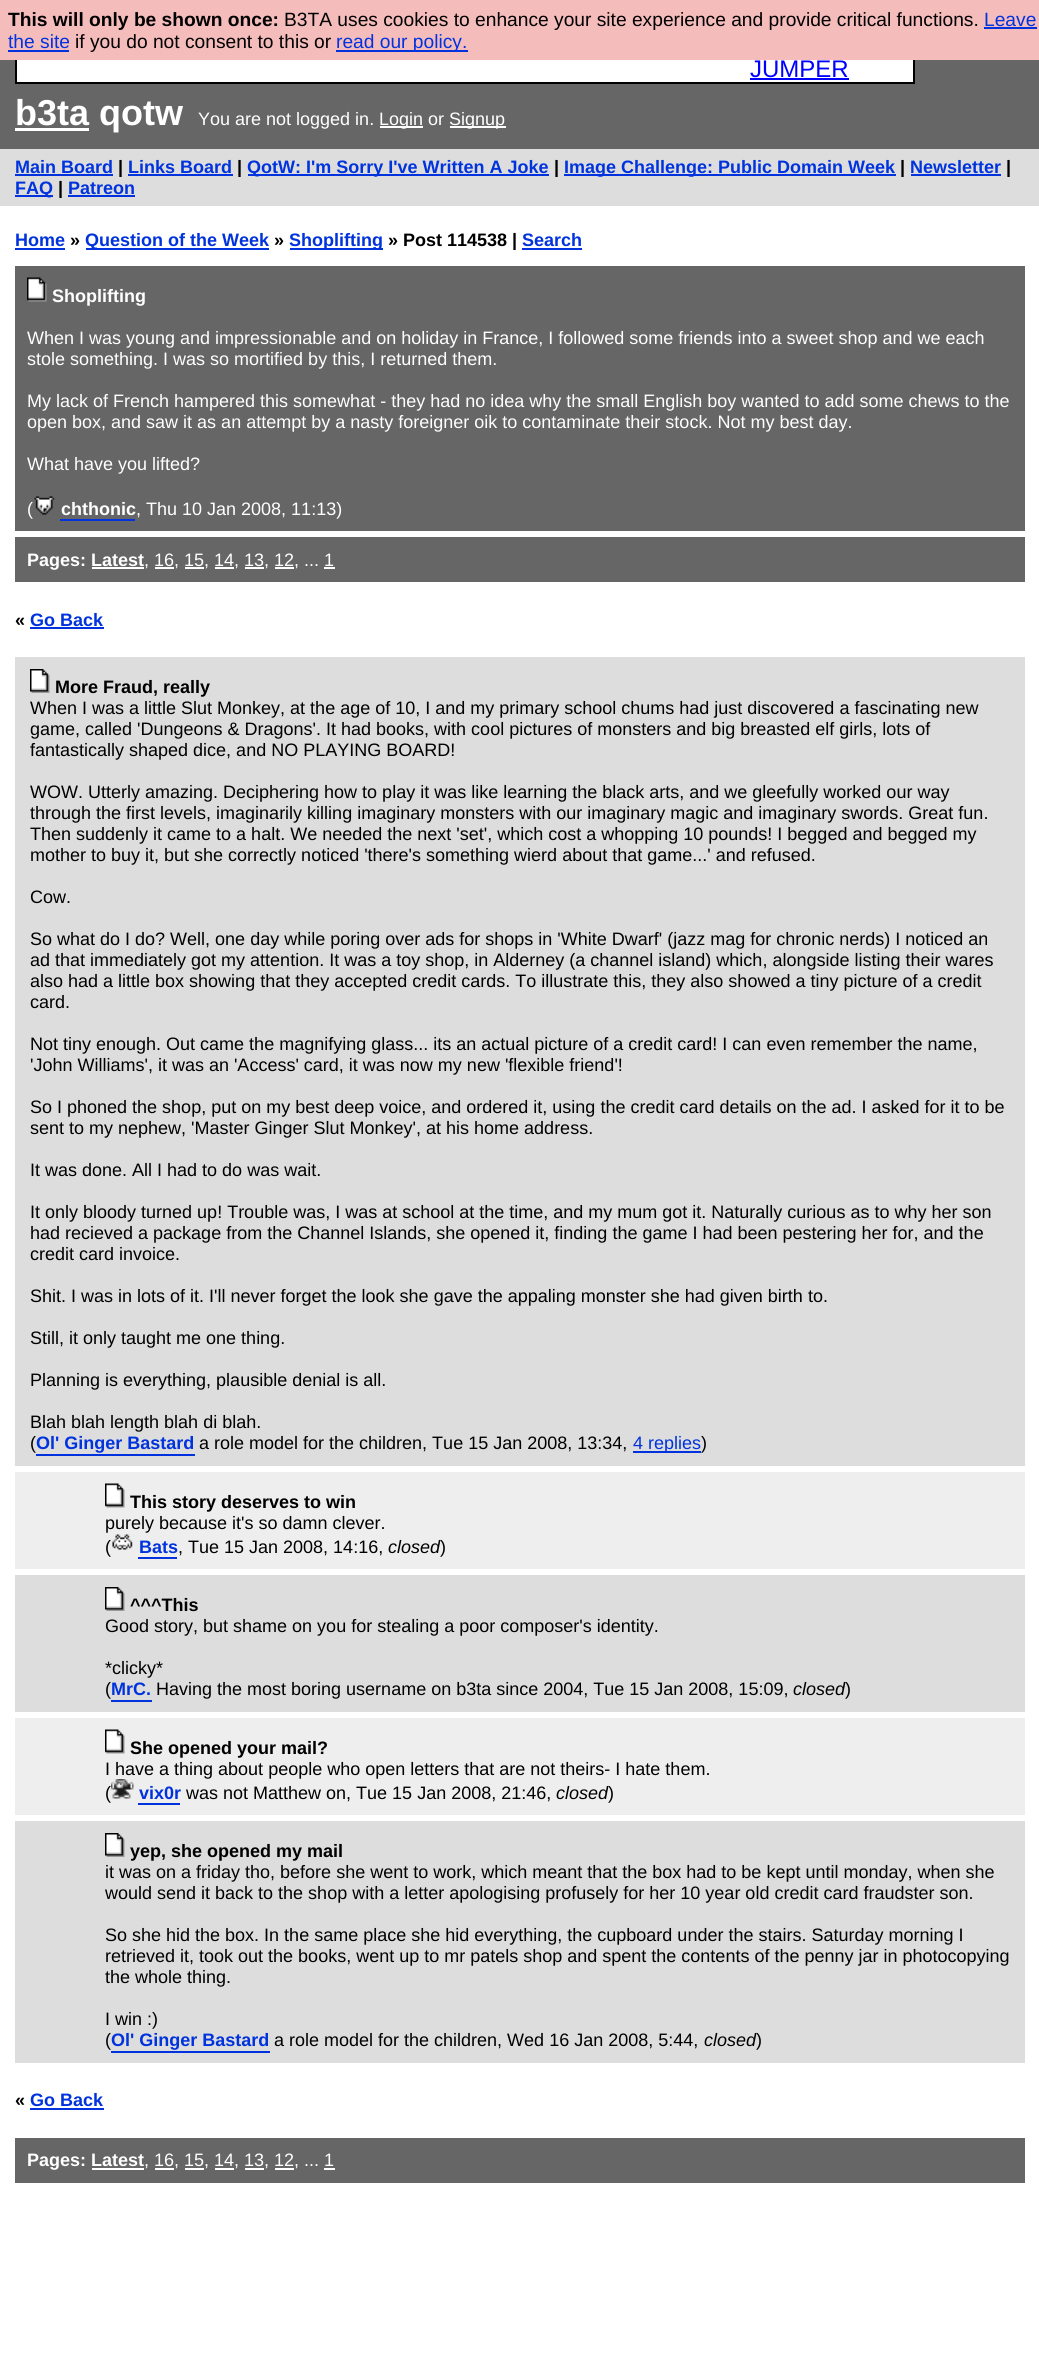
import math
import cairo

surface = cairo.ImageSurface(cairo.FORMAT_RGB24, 1039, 2369)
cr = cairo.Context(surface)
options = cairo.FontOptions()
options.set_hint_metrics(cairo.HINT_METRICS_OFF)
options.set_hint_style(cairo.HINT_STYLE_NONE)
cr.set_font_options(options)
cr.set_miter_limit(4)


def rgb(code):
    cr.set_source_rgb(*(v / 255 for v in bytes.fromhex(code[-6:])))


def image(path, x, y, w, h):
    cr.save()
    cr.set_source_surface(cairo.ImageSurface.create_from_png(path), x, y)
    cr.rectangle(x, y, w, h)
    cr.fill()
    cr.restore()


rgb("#ffffff")
cr.paint()
rgb("#666666")
cr.rectangle(0, 60, 1039, 89)
cr.fill()
rgb("#ffffff")
cr.rectangle(17, 60, 896, 22)
cr.fill()
cr.rectangle(16, 16, 898, 67)
rgb("#000000")
cr.stroke()
for x, y, w, h, color in [
    (0, 0, 1039, 60, "#f5bcbc"),
    (984, 27, 53, 2, "#0033dd"),
    (8, 50, 61, 2, "#0033dd"),
    (336, 50, 132, 2, "#0033dd"),
    (750, 78, 99, 2, "#0000ff"),
    (15, 128, 74, 3, "#ffffff"),
    (380, 126, 43, 2, "#ffffff"),
    (450, 126, 56, 2, "#ffffff"),
    (0, 149, 1039, 57, "#dddddd"),
    (15, 174, 98, 2, "#0033dd"),
    (128, 174, 105, 2, "#0033dd"),
    (248, 174, 301, 2, "#0033dd"),
    (564, 174, 332, 2, "#0033dd"),
    (911, 174, 90, 2, "#0033dd"),
    (15, 195, 38, 2, "#0033dd"),
    (68, 195, 67, 2, "#0033dd"),
    (15, 248, 50, 2, "#0033dd"),
    (86, 248, 183, 2, "#0033dd"),
    (290, 248, 93, 2, "#0033dd"),
    (522, 248, 60, 2, "#0033dd"),
    (15, 266, 1010, 265, "#666666"),
]:
    rgb(color)
    cr.rectangle(x, y, w, h)
    cr.fill()
image("img/1.png", 27, 277, 20, 25)
image("img/2.png", 34, 496, 21, 19)
for x, y, w, h, color in [
    (60, 519, 75, 2, "#0033dd"),
    (15, 537, 1010, 45, "#666666"),
    (92, 567, 52, 2, "#ffffff"),
    (155, 567, 19, 2, "#ffffff"),
    (185, 567, 19, 2, "#ffffff"),
    (215, 567, 19, 2, "#ffffff"),
    (245, 567, 19, 2, "#ffffff"),
    (275, 567, 19, 2, "#ffffff"),
    (324, 567, 11, 2, "#ffffff"),
    (30, 627, 74, 2, "#0033dd"),
    (15, 657, 1010, 809, "#dddddd"),
]:
    rgb(color)
    cr.rectangle(x, y, w, h)
    cr.fill()
image("img/3.png", 30, 669, 20, 24)
for x, y, w, h, color in [
    (36, 1454, 159, 2, "#0033dd"),
    (633, 1451, 68, 2, "#0033dd"),
    (15, 1472, 1010, 97, "#eeeeee"),
]:
    rgb(color)
    cr.rectangle(x, y, w, h)
    cr.fill()
image("img/4.png", 105, 1483, 20, 25)
image("img/5.png", 112, 1534, 21, 16)
rgb("#0033dd")
cr.rectangle(138, 1557, 39, 2)
cr.fill()
rgb("#dddddd")
cr.rectangle(15, 1575, 1010, 137)
cr.fill()
image("img/3.png", 105, 1587, 20, 24)
rgb("#0033dd")
cr.rectangle(111, 1700, 41, 2)
cr.fill()
rgb("#eeeeee")
cr.rectangle(15, 1718, 1010, 97)
cr.fill()
image("img/4.png", 105, 1729, 20, 25)
image("img/6.png", 111, 1779, 23, 20)
rgb("#0033dd")
cr.rectangle(138, 1803, 42, 2)
cr.fill()
rgb("#dddddd")
cr.rectangle(15, 1821, 1010, 242)
cr.fill()
image("img/3.png", 105, 1833, 20, 24)
for x, y, w, h, color in [
    (111, 2051, 159, 2, "#0033dd"),
    (30, 2108, 74, 2, "#0033dd"),
    (15, 2138, 1010, 45, "#666666"),
    (92, 2168, 52, 2, "#ffffff"),
    (155, 2168, 19, 2, "#ffffff"),
    (185, 2168, 19, 2, "#ffffff"),
    (215, 2168, 19, 2, "#ffffff"),
    (245, 2168, 19, 2, "#ffffff"),
    (275, 2168, 19, 2, "#ffffff"),
    (324, 2168, 11, 2, "#ffffff"),
]:
    rgb(color)
    cr.rectangle(x, y, w, h)
    cr.fill()
cr.select_font_face("Liberation Sans", cairo.FONT_SLANT_NORMAL, cairo.FONT_WEIGHT_BOLD)
cr.set_font_size(19.2)
rgb("#000000")
cr.move_to(8, 26)
cr.show_text("This will only be shown once:")
cr.select_font_face("Liberation Sans")
cr.move_to(284, 26)
cr.show_text("B3TA uses cookies to enhance your site experience and provide critical functions.")
rgb("#0033dd")
cr.move_to(984, 26)
cr.show_text("Leave")
cr.move_to(8, 48)
cr.show_text("the site")
rgb("#000000")
cr.move_to(75, 48)
cr.show_text("if you do not consent to this or")
rgb("#0033dd")
cr.move_to(336, 48)
cr.show_text("read our policy.")
cr.set_font_size(24)
rgb("#0000ff")
cr.move_to(750, 77)
cr.show_text("JUMPER")
cr.select_font_face("Liberation Sans", cairo.FONT_SLANT_NORMAL, cairo.FONT_WEIGHT_BOLD)
cr.set_font_size(36)
rgb("#ffffff")
cr.move_to(15, 125)
cr.show_text("b3ta qotw")
cr.select_font_face("Liberation Sans")
cr.set_font_size(18)
for x, y, s in [
    (198, 125, "You are not logged in."),
    (379, 125, "Login or"),
    (449, 125, "Signup"),
]:
    cr.move_to(x, y)
    cr.show_text(s)
cr.select_font_face("Liberation Sans", cairo.FONT_SLANT_NORMAL, cairo.FONT_WEIGHT_BOLD)
rgb("#0033dd")
cr.move_to(15, 173)
cr.show_text("Main Board")
rgb("#000000")
cr.move_to(118, 173)
cr.show_text("|")
rgb("#0033dd")
cr.move_to(128, 173)
cr.show_text("Links Board")
rgb("#000000")
cr.move_to(237, 173)
cr.show_text("|")
rgb("#0033dd")
cr.move_to(247, 173)
cr.show_text("QotW: I'm Sorry I've Written A Joke")
rgb("#000000")
cr.move_to(554, 173)
cr.show_text("|")
rgb("#0033dd")
cr.move_to(564, 173)
cr.show_text("Image Challenge: Public Domain Week")
rgb("#000000")
cr.move_to(900, 173)
cr.show_text("|")
rgb("#0033dd")
cr.move_to(910, 173)
cr.show_text("Newsletter")
rgb("#000000")
cr.move_to(1006, 173)
cr.show_text("|")
rgb("#0033dd")
cr.move_to(15, 194)
cr.show_text("FAQ")
rgb("#000000")
cr.move_to(58, 194)
cr.show_text("|")
rgb("#0033dd")
cr.move_to(68, 194)
cr.show_text("Patreon")
cr.move_to(15, 246)
cr.show_text("Home")
rgb("#000000")
cr.move_to(70, 246)
cr.show_text("»")
rgb("#0033dd")
cr.move_to(85, 246)
cr.show_text("Question of the Week")
rgb("#000000")
cr.move_to(274, 246)
cr.show_text("»")
rgb("#0033dd")
cr.move_to(289, 246)
cr.show_text("Shoplifting")
rgb("#000000")
cr.move_to(388, 246)
cr.show_text("» Post 114538 |")
rgb("#0033dd")
cr.move_to(522, 246)
cr.show_text("Search")
rgb("#ffffff")
cr.move_to(52, 302)
cr.show_text("Shoplifting")
cr.select_font_face("Liberation Sans")
for x, y, s in [
    (27, 344, "When I was young and impressionable and on holiday in France, I followed some friends into a sweet shop and we each"),
    (27, 365, "stole something. I was so mortified by this, I returned them."),
    (27, 407, "My lack of French hampered this somewhat - they had no idea why the small English boy wanted to add some chews to the"),
    (27, 428, "open box, and saw it as an attempt by a nasty foreigner oik to contaminate their stock. Not my best day."),
    (27, 470, "What have you lifted?"),
    (27, 515, "("),
]:
    cr.move_to(x, y)
    cr.show_text(s)
cr.select_font_face("Liberation Sans", cairo.FONT_SLANT_NORMAL, cairo.FONT_WEIGHT_BOLD)
cr.move_to(61, 515)
cr.show_text("chthonic")
cr.select_font_face("Liberation Sans")
cr.move_to(136, 515)
cr.show_text(", Thu 10 Jan 2008, 11:13)")
cr.select_font_face("Liberation Sans", cairo.FONT_SLANT_NORMAL, cairo.FONT_WEIGHT_BOLD)
cr.move_to(27, 566)
cr.show_text("Pages: Latest")
cr.select_font_face("Liberation Sans")
cr.move_to(144, 566)
cr.show_text(", 16, 15, 14, 13, 12, ... 1")
cr.select_font_face("Liberation Sans", cairo.FONT_SLANT_NORMAL, cairo.FONT_WEIGHT_BOLD)
rgb("#000000")
cr.move_to(15, 626)
cr.show_text("«")
rgb("#0033dd")
cr.move_to(30, 626)
cr.show_text("Go Back")
rgb("#000000")
cr.move_to(55, 693)
cr.show_text("More Fraud, really")
cr.select_font_face("Liberation Sans")
for x, y, s in [
    (30, 714, "When I was a little Slut Monkey, at the age of 10, I and my primary school chums had just discovered a fascinating new"),
    (30, 735, "game, called 'Dungeons & Dragons'. It had books, with cool pictures of monsters and big breasted elf girls, lots of"),
    (30, 756, "fantastically shaped dice, and NO PLAYING BOARD!"),
    (30, 798, "WOW. Utterly amazing. Deciphering how to play it was like learning the black arts, and we gleefully worked our way"),
    (30, 819, "through the first levels, imaginarily killing imaginary monsters with our imaginary magic and imaginary swords. Great fun."),
    (30, 840, "Then suddenly it came to a halt. We needed the next 'set', which cost a whopping 10 pounds! I begged and begged my"),
    (30, 861, "mother to buy it, but she correctly noticed 'there's something wierd about that game...' and refused."),
    (30, 903, "Cow."),
    (30, 945, "So what do I do? Well, one day while poring over ads for shops in 'White Dwarf' (jazz mag for chronic nerds) I noticed an"),
    (30, 966, "ad that immediately got my attention. It was a toy shop, in Alderney (a channel island) which, alongside listing their wares"),
    (30, 987, "also had a little box showing that they accepted credit cards. To illustrate this, they also showed a tiny picture of a credit"),
    (30, 1008, "card."),
    (30, 1050, "Not tiny enough. Out came the magnifying glass... its an actual picture of a credit card! I can even remember the name,"),
    (30, 1071, "'John Williams', it was an 'Access' card, it was now my new 'flexible friend'!"),
    (30, 1113, "So I phoned the shop, put on my best deep voice, and ordered it, using the credit card details on the ad. I asked for it to be"),
    (30, 1134, "sent to my nephew, 'Master Ginger Slut Monkey', at his home address."),
    (30, 1176, "It was done. All I had to do was wait."),
    (30, 1218, "It only bloody turned up! Trouble was, I was at school at the time, and my mum got it. Naturally curious as to why her son"),
    (30, 1239, "had recieved a package from the Channel Islands, she opened it, finding the game I had been pestering her for, and the"),
    (30, 1260, "credit card invoice."),
    (30, 1302, "Shit. I was in lots of it. I'll never forget the look she gave the appaling monster she had given birth to."),
    (30, 1344, "Still, it only taught me one thing."),
    (30, 1386, "Planning is everything, plausible denial is all."),
    (30, 1428, "Blah blah length blah di blah."),
    (30, 1449, "("),
]:
    cr.move_to(x, y)
    cr.show_text(s)
cr.select_font_face("Liberation Sans", cairo.FONT_SLANT_NORMAL, cairo.FONT_WEIGHT_BOLD)
rgb("#0033dd")
cr.move_to(36, 1449)
cr.show_text("Ol' Ginger Bastard")
cr.select_font_face("Liberation Sans")
rgb("#000000")
cr.move_to(199, 1449)
cr.show_text("a role model for the children, Tue 15 Jan 2008, 13:34,")
rgb("#0033dd")
cr.move_to(633, 1449)
cr.show_text("4 replies")
rgb("#000000")
cr.move_to(701, 1449)
cr.show_text(")")
cr.select_font_face("Liberation Sans", cairo.FONT_SLANT_NORMAL, cairo.FONT_WEIGHT_BOLD)
cr.move_to(130, 1508)
cr.show_text("This story deserves to win")
cr.select_font_face("Liberation Sans")
cr.move_to(105, 1529)
cr.show_text("purely because it's so damn clever.")
cr.move_to(105, 1553)
cr.show_text("(")
cr.select_font_face("Liberation Sans", cairo.FONT_SLANT_NORMAL, cairo.FONT_WEIGHT_BOLD)
rgb("#0033dd")
cr.move_to(139, 1553)
cr.show_text("Bats")
cr.select_font_face("Liberation Sans")
rgb("#000000")
cr.move_to(178, 1553)
cr.show_text(", Tue 15 Jan 2008, 14:16,")
cr.select_font_face("Liberation Sans", cairo.FONT_SLANT_ITALIC)
cr.move_to(388, 1553)
cr.show_text("closed")
cr.select_font_face("Liberation Sans")
cr.move_to(440, 1553)
cr.show_text(")")
cr.select_font_face("Liberation Sans", cairo.FONT_SLANT_NORMAL, cairo.FONT_WEIGHT_BOLD)
cr.move_to(130, 1611)
cr.show_text("^^^This")
cr.select_font_face("Liberation Sans")
for x, y, s in [
    (105, 1632, "Good story, but shame on you for stealing a poor composer's identity."),
    (105, 1674, "*clicky*"),
    (105, 1695, "("),
]:
    cr.move_to(x, y)
    cr.show_text(s)
cr.select_font_face("Liberation Sans", cairo.FONT_SLANT_NORMAL, cairo.FONT_WEIGHT_BOLD)
rgb("#0033dd")
cr.move_to(111, 1695)
cr.show_text("MrC.")
cr.select_font_face("Liberation Sans")
rgb("#000000")
cr.move_to(156, 1695)
cr.show_text("Having the most boring username on b3ta since 2004, Tue 15 Jan 2008, 15:09,")
cr.select_font_face("Liberation Sans", cairo.FONT_SLANT_ITALIC)
cr.move_to(793, 1695)
cr.show_text("closed")
cr.select_font_face("Liberation Sans")
cr.move_to(845, 1695)
cr.show_text(")")
cr.select_font_face("Liberation Sans", cairo.FONT_SLANT_NORMAL, cairo.FONT_WEIGHT_BOLD)
cr.move_to(130, 1754)
cr.show_text("She opened your mail?")
cr.select_font_face("Liberation Sans")
cr.move_to(105, 1775)
cr.show_text("I have a thing about people who open letters that are not theirs- I hate them.")
cr.move_to(105, 1799)
cr.show_text("(")
cr.select_font_face("Liberation Sans", cairo.FONT_SLANT_NORMAL, cairo.FONT_WEIGHT_BOLD)
rgb("#0033dd")
cr.move_to(139, 1799)
cr.show_text("vix0r")
cr.select_font_face("Liberation Sans")
rgb("#000000")
cr.move_to(186, 1799)
cr.show_text("was not Matthew on, Tue 15 Jan 2008, 21:46,")
cr.select_font_face("Liberation Sans", cairo.FONT_SLANT_ITALIC)
cr.move_to(556, 1799)
cr.show_text("closed")
cr.select_font_face("Liberation Sans")
cr.move_to(608, 1799)
cr.show_text(")")
cr.select_font_face("Liberation Sans", cairo.FONT_SLANT_NORMAL, cairo.FONT_WEIGHT_BOLD)
cr.move_to(130, 1857)
cr.show_text("yep, she opened my mail")
cr.select_font_face("Liberation Sans")
for x, y, s in [
    (105, 1878, "it was on a friday tho, before she went to work, which meant that the box had to be kept until monday, when she"),
    (105, 1899, "would send it back to the shop with a letter apologising profusely for her 10 year old credit card fraudster son."),
    (105, 1941, "So she hid the box. In the same place she hid everything, the cupboard under the stairs. Saturday morning I"),
    (105, 1962, "retrieved it, took out the books, went up to mr patels shop and spent the contents of the penny jar in photocopying"),
    (105, 1983, "the whole thing."),
    (105, 2025, "I win :)"),
    (105, 2046, "("),
]:
    cr.move_to(x, y)
    cr.show_text(s)
cr.select_font_face("Liberation Sans", cairo.FONT_SLANT_NORMAL, cairo.FONT_WEIGHT_BOLD)
rgb("#0033dd")
cr.move_to(111, 2046)
cr.show_text("Ol' Ginger Bastard")
cr.select_font_face("Liberation Sans")
rgb("#000000")
cr.move_to(274, 2046)
cr.show_text("a role model for the children, Wed 16 Jan 2008, 5:44,")
cr.select_font_face("Liberation Sans", cairo.FONT_SLANT_ITALIC)
cr.move_to(704, 2046)
cr.show_text("closed")
cr.select_font_face("Liberation Sans")
cr.move_to(756, 2046)
cr.show_text(")")
cr.select_font_face("Liberation Sans", cairo.FONT_SLANT_NORMAL, cairo.FONT_WEIGHT_BOLD)
cr.move_to(15, 2106)
cr.show_text("«")
rgb("#0033dd")
cr.move_to(30, 2106)
cr.show_text("Go Back")
rgb("#ffffff")
cr.move_to(27, 2166)
cr.show_text("Pages: Latest")
cr.select_font_face("Liberation Sans")
cr.move_to(144, 2166)
cr.show_text(", 16, 15, 14, 13, 12, ... 1")
surface.write_to_png("page.png")
